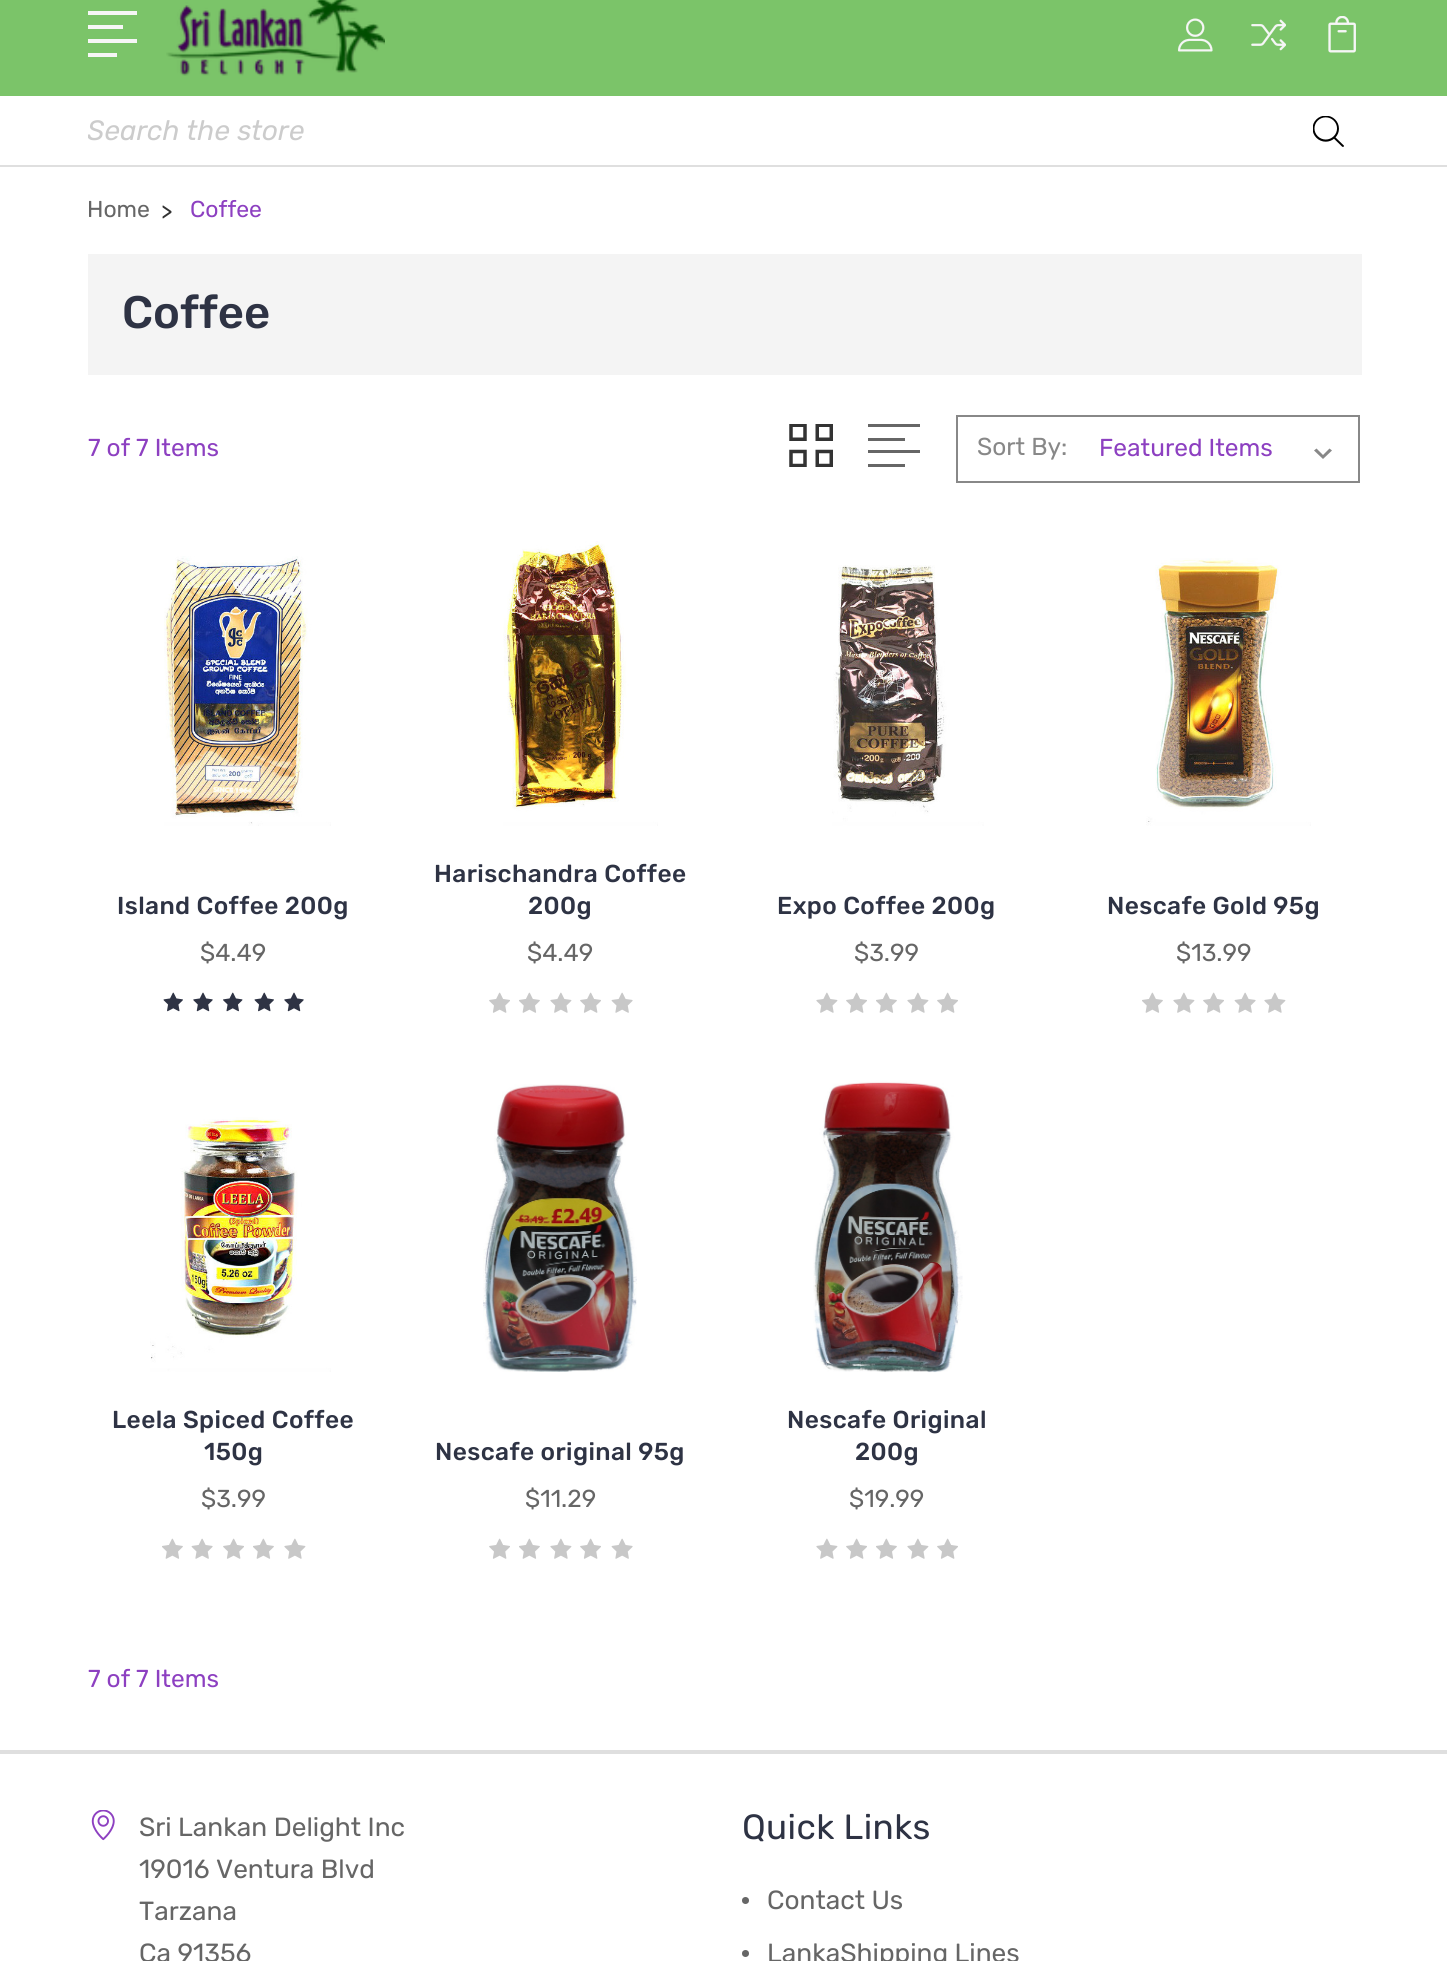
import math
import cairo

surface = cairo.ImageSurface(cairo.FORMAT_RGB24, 1447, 1961)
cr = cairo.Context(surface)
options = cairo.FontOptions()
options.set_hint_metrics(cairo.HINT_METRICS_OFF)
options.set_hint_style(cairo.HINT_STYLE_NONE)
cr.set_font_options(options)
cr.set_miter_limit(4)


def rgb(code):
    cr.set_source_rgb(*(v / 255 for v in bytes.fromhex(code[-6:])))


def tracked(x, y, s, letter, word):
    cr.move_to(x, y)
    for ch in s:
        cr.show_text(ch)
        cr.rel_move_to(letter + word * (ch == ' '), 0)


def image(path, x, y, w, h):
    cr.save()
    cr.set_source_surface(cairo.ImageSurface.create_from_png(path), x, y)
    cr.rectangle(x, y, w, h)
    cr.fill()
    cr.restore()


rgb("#ffffff")
cr.paint()
for x, y, w, h, color in [
    (0, 0, 1447, 96, "#7bc469"),
    (88, 11, 49, 4, "#f6f6f6"),
    (88, 25, 35, 4, "#f6f6f6"),
    (88, 39, 49, 4, "#f6f6f6"),
    (88, 53, 29, 4, "#f6f6f6"),
]:
    rgb(color)
    cr.rectangle(x, y, w, h)
    cr.fill()
image("img/1.png", 166, 0, 219, 76)
image("img/2.png", 1178, 18, 35, 34)
image("img/3.png", 1251, 19, 35, 32)
image("img/4.png", 1328, 16, 28, 37)
rgb("#dfdfdf")
cr.rectangle(0, 165, 1447, 2)
cr.fill()
image("img/5.png", 1313, 116, 31, 31)
rgb("#f4f4f4")
cr.rectangle(88, 254, 1274, 121)
cr.fill()
image("img/6.png", 789, 424, 44, 43)
rgb("#666666")
cr.new_path()
cr.move_to(905, 464)
cr.line_to(905, 467)
cr.line_to(868, 467)
cr.line_to(868, 464)
cr.close_path()
cr.move_to(920, 450)
cr.line_to(920, 453)
cr.line_to(868, 453)
cr.line_to(868, 450)
cr.close_path()
cr.move_to(905, 438)
cr.line_to(905, 441)
cr.line_to(868, 441)
cr.line_to(868, 438)
cr.close_path()
cr.move_to(920, 424)
cr.line_to(920, 427)
cr.line_to(868, 427)
cr.line_to(868, 424)
cr.close_path()
cr.fill()
cr.rectangle(957, 416, 402, 66)
rgb("#888888")
cr.stroke()
cr.new_path()
cr.move_to(1329.5, 448.5)
cr.line_to(1323, 455)
cr.line_to(1316.5, 448.5)
cr.line_to(1314, 450.5)
cr.line_to(1323, 459)
cr.line_to(1332, 450.5)
cr.close_path()
cr.fill()
image("img/7.png", 164, 556, 167, 270)
image("img/8.png", 163, 992, 20, 20)
image("img/9.png", 193, 992, 20, 20)
image("img/10.png", 223, 992, 20, 20)
image("img/8.png", 254, 992, 20, 20)
image("img/9.png", 284, 992, 20, 20)
image("img/11.png", 503, 541, 155, 285)
image("img/12.png", 489, 992, 21, 21)
image("img/13.png", 519, 992, 21, 21)
image("img/14.png", 550, 992, 22, 21)
image("img/12.png", 580, 992, 21, 21)
image("img/15.png", 611, 992, 22, 21)
image("img/16.png", 832, 565, 152, 261)
image("img/14.png", 816, 992, 22, 21)
image("img/12.png", 846, 992, 21, 21)
image("img/13.png", 876, 992, 21, 21)
image("img/14.png", 907, 992, 22, 21)
image("img/12.png", 937, 992, 21, 21)
image("img/17.png", 1146, 558, 165, 268)
image("img/13.png", 1142, 992, 21, 21)
image("img/14.png", 1173, 992, 22, 21)
image("img/12.png", 1203, 992, 21, 21)
image("img/15.png", 1234, 992, 22, 21)
image("img/14.png", 1264, 992, 22, 21)
image("img/18.png", 150, 1117, 181, 255)
image("img/13.png", 162, 1538, 21, 21)
image("img/15.png", 191, 1538, 22, 21)
image("img/12.png", 223, 1538, 21, 21)
image("img/13.png", 253, 1538, 21, 21)
image("img/14.png", 284, 1538, 22, 21)
image("img/19.png", 483, 1084, 154, 288)
image("img/12.png", 489, 1538, 21, 21)
image("img/13.png", 519, 1538, 21, 21)
image("img/14.png", 550, 1538, 22, 21)
image("img/12.png", 580, 1538, 21, 21)
image("img/15.png", 611, 1538, 22, 21)
image("img/20.png", 813, 1080, 150, 293)
image("img/14.png", 816, 1538, 22, 21)
image("img/12.png", 846, 1538, 21, 21)
image("img/13.png", 876, 1538, 21, 21)
image("img/14.png", 907, 1538, 22, 21)
image("img/12.png", 937, 1538, 21, 21)
rgb("#dfdfdf")
cr.rectangle(0, 1750, 1447, 4)
cr.fill()
image("img/21.png", 91, 1810, 24, 31)
rgb("#666666")
cr.arc(745.5, 1900.5, 3.5, 0, 2 * math.pi)
cr.fill()
cr.arc(745.5, 1953.5, 3.5, 0, 2 * math.pi)
cr.fill()
cr.save()
cr.rectangle(88, 114, 1221, 33)
cr.clip()
cr.select_font_face("Rubik", cairo.FONT_SLANT_ITALIC)
cr.set_font_size(28)
rgb("#cccccc")
cr.move_to(87, 140)
cr.show_text("Search the store")
cr.restore()
cr.select_font_face("Rubik")
cr.set_font_size(23)
cr.move_to(87, 217)
cr.show_text("Home")
rgb("#333333")
cr.move_to(161, 219)
cr.show_text(">")
rgb("#8d40c1")
cr.move_to(190, 217)
cr.show_text("Coffee")
cr.select_font_face("Rubik Medium")
cr.set_font_size(45.5)
rgb("#2e3344")
cr.move_to(122, 328)
cr.show_text("Coffee")
cr.select_font_face("Rubik")
cr.set_font_size(24.5)
rgb("#8d40c1")
cr.move_to(88, 456)
cr.show_text("7 of 7 Items")
rgb("#888888")
cr.move_to(977, 455)
cr.show_text("Sort By:")
rgb("#8d40c1")
cr.move_to(1099, 456)
cr.show_text("Featured Items")
cr.select_font_face("Rubik Medium")
rgb("#2e3344")
tracked(117, 914, "Island Coffee 200g", 0.4, 0)
cr.select_font_face("Rubik")
rgb("#666666")
cr.move_to(200, 961)
cr.show_text("$4.49")
cr.select_font_face("Rubik Medium")
rgb("#2e3344")
tracked(434, 882, "Harischandra Coffee", 0.4, 0)
tracked(528, 914, "200g", 0.4, 0)
cr.select_font_face("Rubik")
rgb("#666666")
cr.move_to(527, 961)
cr.show_text("$4.49")
cr.select_font_face("Rubik Medium")
rgb("#2e3344")
tracked(777, 914, "Expo Coffee 200g", 0.4, 0)
cr.select_font_face("Rubik")
rgb("#666666")
cr.move_to(854, 961)
cr.show_text("$3.99")
cr.select_font_face("Rubik Medium")
rgb("#2e3344")
tracked(1107, 914, "Nescafe Gold 95g", 0.4, 0)
cr.select_font_face("Rubik")
rgb("#666666")
cr.move_to(1176, 961)
cr.show_text("$13.99")
cr.select_font_face("Rubik Medium")
rgb("#2e3344")
tracked(112, 1428, "Leela Spiced Coffee", 0.4, 0)
tracked(204, 1460, "150g", 0.4, 0)
cr.select_font_face("Rubik")
rgb("#666666")
cr.move_to(201, 1507)
cr.show_text("$3.99")
cr.select_font_face("Rubik Medium")
rgb("#2e3344")
tracked(435, 1460, "Nescafe original 95g", 0.4, 0)
cr.select_font_face("Rubik")
rgb("#666666")
cr.move_to(525, 1507)
cr.show_text("$11.29")
cr.select_font_face("Rubik Medium")
rgb("#2e3344")
tracked(787, 1428, "Nescafe Original", 0.4, 0)
tracked(855, 1460, "200g", 0.4, 0)
cr.select_font_face("Rubik")
rgb("#666666")
cr.move_to(849, 1507)
cr.show_text("$19.99")
rgb("#8d40c1")
cr.move_to(88, 1687)
cr.show_text("7 of 7 Items")
cr.set_font_size(26.25)
rgb("#666666")
for x, y, s in [
    (139, 1836, "Sri Lankan Delight Inc"),
    (139, 1878, "19016 Ventura Blvd"),
    (139, 1920, "Tarzana"),
    (139, 1962, "Ca 91356"),
]:
    cr.move_to(x, y)
    cr.show_text(s)
cr.set_font_size(35)
rgb("#2e3344")
tracked(742, 1839, "Quick Links", 0.4, 0)
cr.set_font_size(26.25)
rgb("#666666")
cr.move_to(767, 1909)
cr.show_text("Contact Us")
cr.move_to(767, 1962)
cr.show_text("LankaShipping Lines")
surface.write_to_png("page.png")
